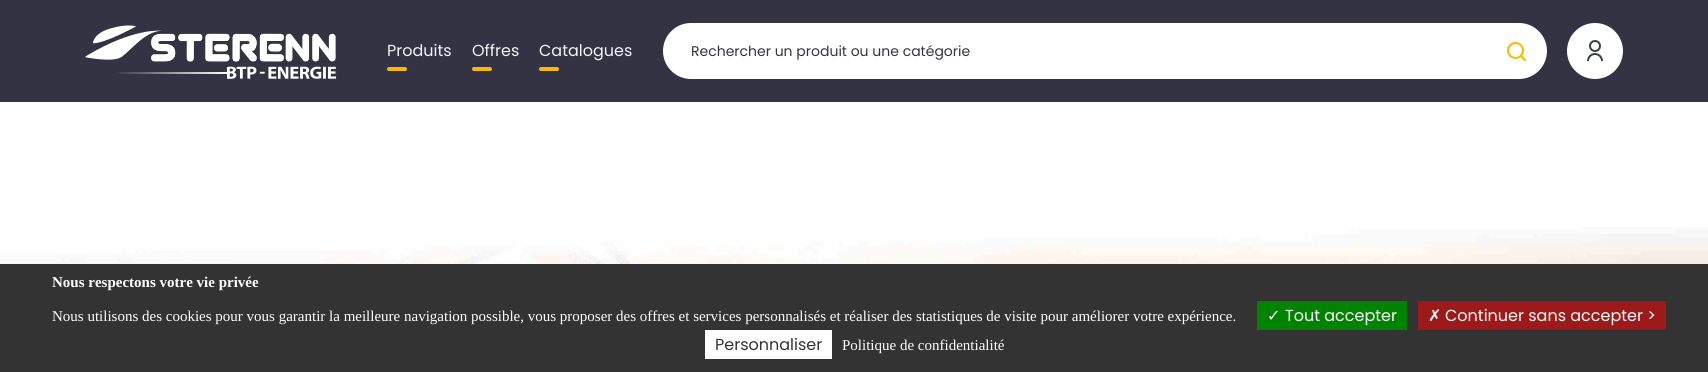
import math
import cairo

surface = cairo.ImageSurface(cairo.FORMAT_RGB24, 1708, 372)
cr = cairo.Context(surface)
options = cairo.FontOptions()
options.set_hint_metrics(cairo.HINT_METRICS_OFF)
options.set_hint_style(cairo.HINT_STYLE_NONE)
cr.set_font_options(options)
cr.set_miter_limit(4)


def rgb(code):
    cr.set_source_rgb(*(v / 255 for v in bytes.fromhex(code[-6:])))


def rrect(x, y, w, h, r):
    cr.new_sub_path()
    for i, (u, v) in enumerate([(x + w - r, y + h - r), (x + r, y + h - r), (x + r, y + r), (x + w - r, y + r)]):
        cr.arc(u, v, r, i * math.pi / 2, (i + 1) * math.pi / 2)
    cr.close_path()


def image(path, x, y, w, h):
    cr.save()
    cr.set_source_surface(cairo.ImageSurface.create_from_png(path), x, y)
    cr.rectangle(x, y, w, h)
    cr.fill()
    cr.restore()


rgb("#ffffff")
cr.paint()
rgb("#333344")
cr.rectangle(0, 0, 1708, 102)
cr.fill()
image("img/1.png", 85, 25, 252, 54)
rgb("#fbba00")
rrect(387, 67, 20, 4, 2)
cr.fill()
rrect(472, 67, 20, 4, 2)
cr.fill()
rrect(539, 67, 20, 4, 2)
cr.fill()
rgb("#ffffff")
rrect(663, 23, 884, 56, 28)
cr.fill()
image("img/2.png", 1507, 42, 20, 20)
cr.arc(1595, 51, 28, 0, 2 * math.pi)
cr.fill()
image("img/3.png", 1587, 40, 16, 21)
image("img/4.png", 0, 227, 1708, 37)
for x, y, w, h, color in [
    (0, 264, 1708, 108, "#333333"),
    (1257, 301, 150, 29, "#008300"),
    (1418, 301, 248, 29, "#9c1a1a"),
    (705, 330, 127, 29, "#ffffff"),
]:
    rgb(color)
    cr.rectangle(x, y, w, h)
    cr.fill()
cr.select_font_face("Poppins")
cr.set_font_size(16)
rgb("#f4f4f4")
for x, y, s in [
    (387, 56, "Produits"),
    (472, 56, "Offres"),
    (539, 56, "Catalogues"),
]:
    cr.move_to(x, y)
    cr.show_text(s)
cr.set_font_size(14)
rgb("#333344")
cr.move_to(691, 56)
cr.show_text("Rechercher un produit ou une catégorie")
cr.select_font_face("Liberation Serif", cairo.FONT_SLANT_NORMAL, cairo.FONT_WEIGHT_BOLD)
cr.set_font_size(15)
rgb("#ffffff")
cr.move_to(52, 287)
cr.show_text("Nous respectons votre vie privée")
cr.select_font_face("Liberation Serif")
cr.move_to(52, 321)
cr.show_text("Nous utilisons des cookies pour vous garantir la meilleure navigation possible, vous proposer des offres et services personnalisés et réaliser des statistiques de visite pour améliorer votre expérience.")
cr.select_font_face("DejaVu Sans")
cr.set_font_size(16)
cr.move_to(1267, 321)
cr.show_text("✓")
cr.select_font_face("Poppins")
cr.move_to(1285, 321)
cr.show_text("Tout accepter")
cr.select_font_face("DejaVu Sans")
cr.move_to(1428, 321)
cr.show_text("✗")
cr.select_font_face("Poppins")
cr.move_to(1445, 321)
cr.show_text("Continuer sans accepter >")
rgb("#333333")
cr.move_to(715, 350)
cr.show_text("Personnaliser")
cr.select_font_face("Liberation Serif")
cr.set_font_size(15)
rgb("#ffffff")
cr.move_to(842, 350)
cr.show_text("Politique de confidentialité")
surface.write_to_png("page.png")
